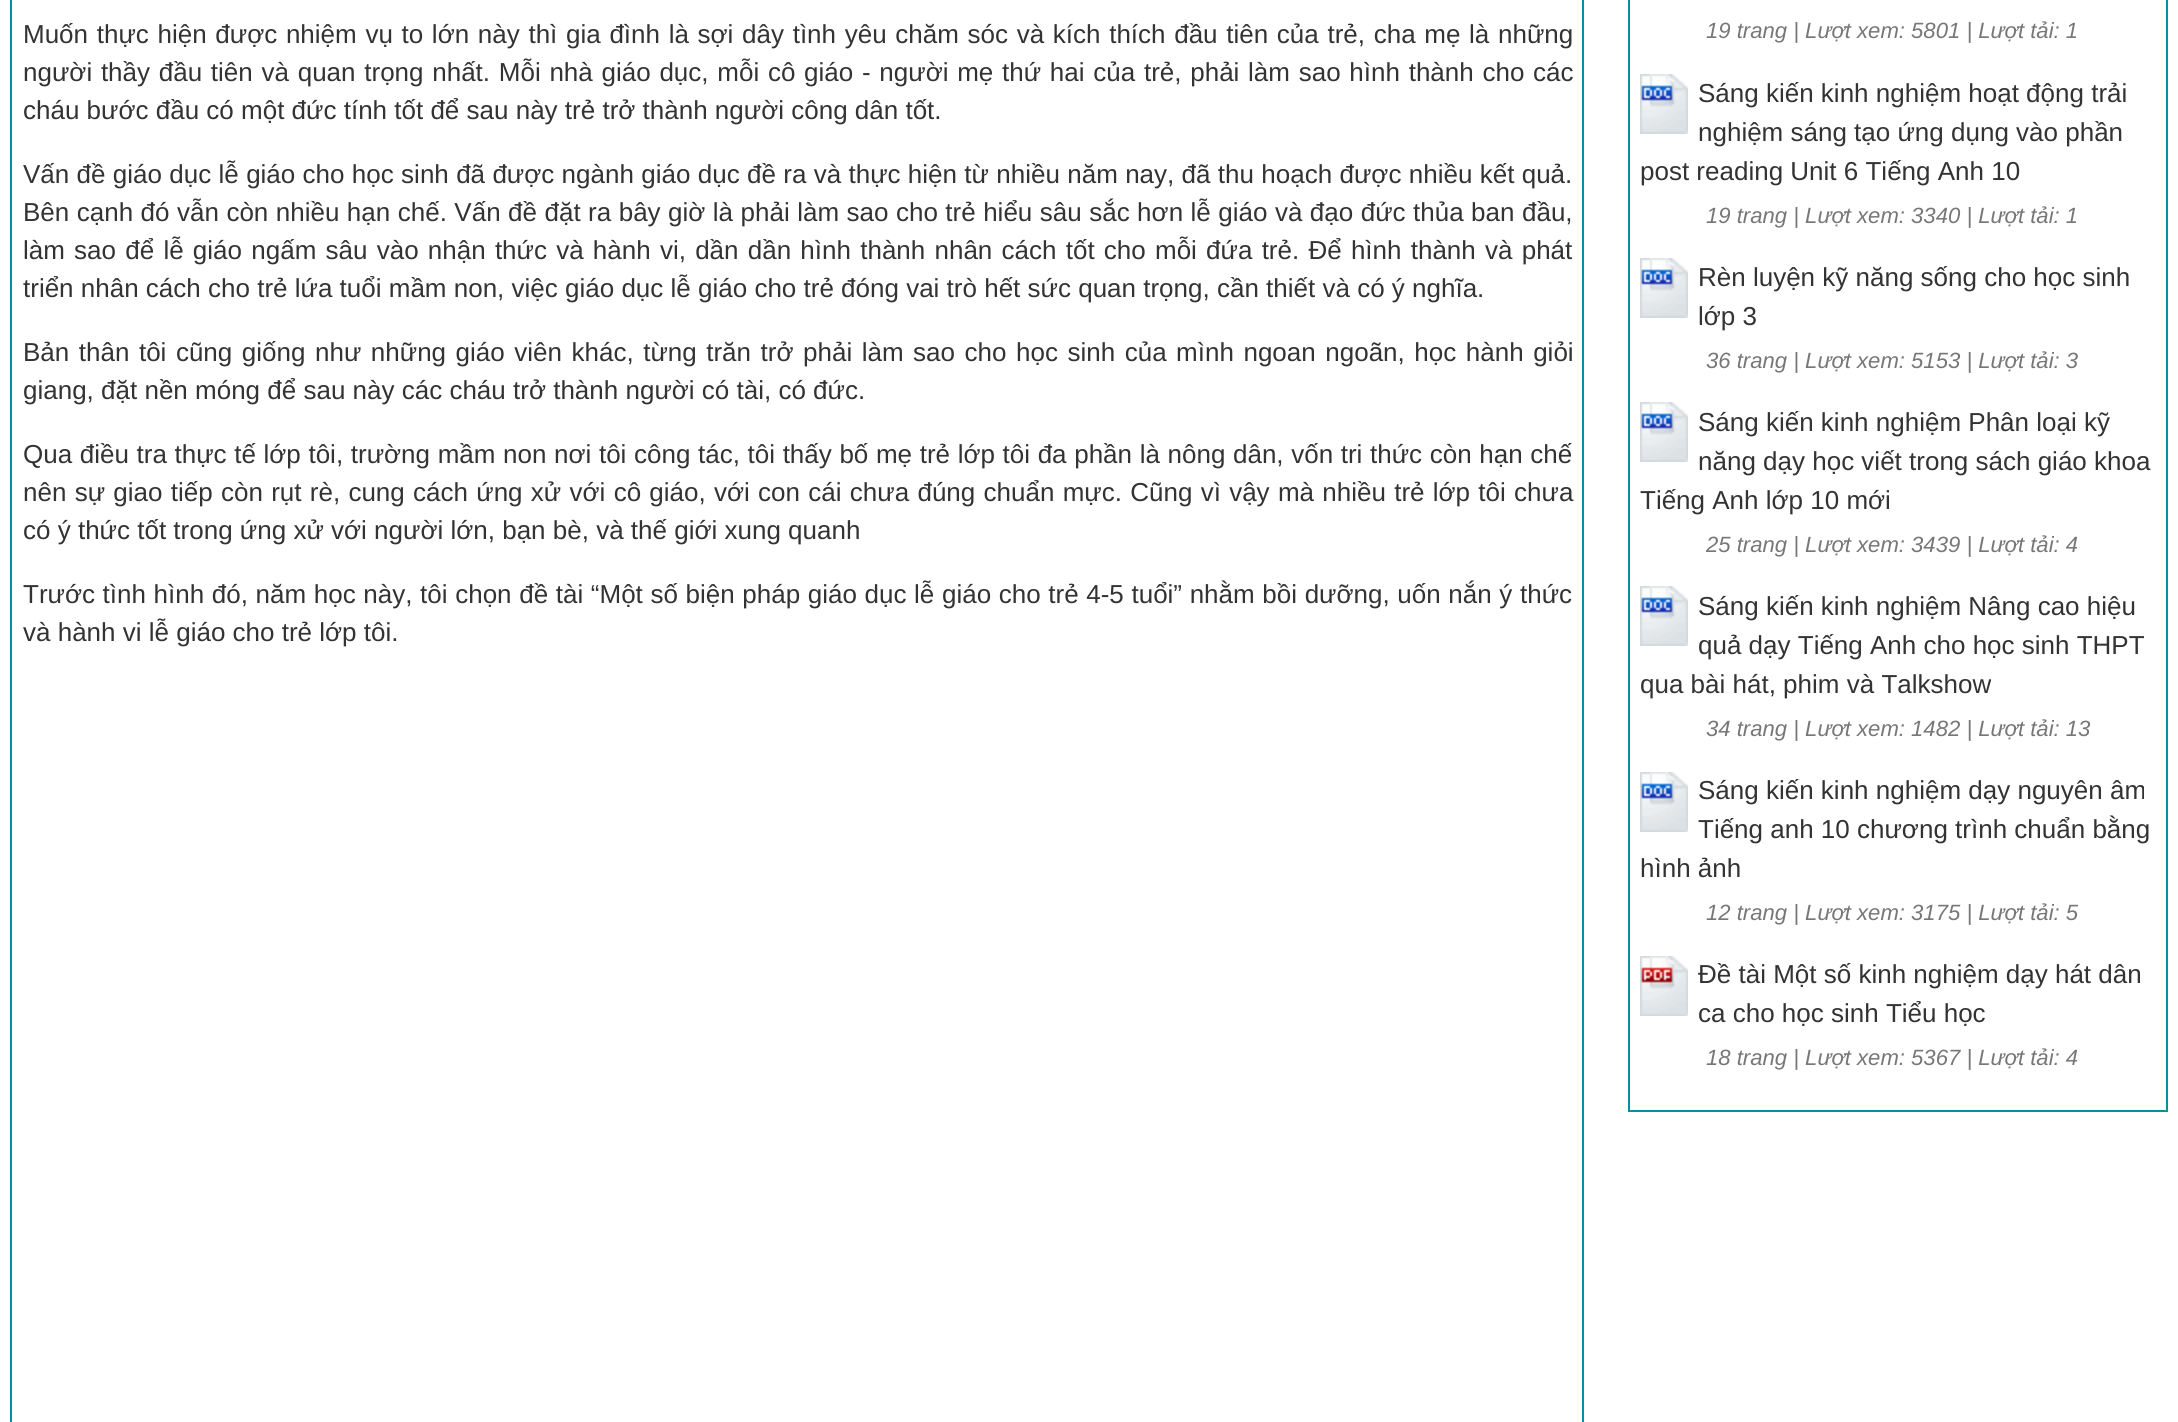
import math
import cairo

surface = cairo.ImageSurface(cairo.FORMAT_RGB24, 2178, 1422)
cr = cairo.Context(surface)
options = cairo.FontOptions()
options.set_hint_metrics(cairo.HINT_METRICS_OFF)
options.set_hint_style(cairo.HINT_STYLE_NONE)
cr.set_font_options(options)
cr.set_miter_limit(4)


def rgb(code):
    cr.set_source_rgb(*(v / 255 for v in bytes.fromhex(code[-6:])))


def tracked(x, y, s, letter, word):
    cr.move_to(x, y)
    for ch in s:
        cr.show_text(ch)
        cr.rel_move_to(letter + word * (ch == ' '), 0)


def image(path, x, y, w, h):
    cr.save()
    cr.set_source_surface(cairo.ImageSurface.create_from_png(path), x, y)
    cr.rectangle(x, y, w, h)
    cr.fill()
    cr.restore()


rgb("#ffffff")
cr.paint()
for x, y, w, h, color in [
    (1582, 0, 2, 1422, "#048fa3"),
    (10, 0, 2, 1422, "#048fa3"),
    (2166, 0, 2, 1112, "#048fa3"),
    (1628, 1110, 540, 2, "#048fa3"),
    (1628, 0, 2, 1112, "#048fa3"),
]:
    rgb(color)
    cr.rectangle(x, y, w, h)
    cr.fill()
image("img/1.png", 1640, 74, 48, 60)
image("img/1.png", 1640, 258, 48, 60)
image("img/1.png", 1640, 402, 48, 60)
image("img/1.png", 1640, 586, 48, 60)
image("img/1.png", 1640, 772, 48, 60)
image("img/2.png", 1640, 956, 48, 60)
cr.select_font_face("Liberation Sans")
cr.set_font_size(26)
rgb("#333333")
tracked(23, 43, "Muốn thực hiện được nhiệm vụ to lớn này thì gia đình là sợi dây tình yêu chăm sóc và kích thích đầu tiên của trẻ, cha mẹ là những", 0, 1.45)
tracked(23, 81, "người thầy đầu tiên và quan trọng nhất. Mỗi nhà giáo dục, mỗi cô giáo - người mẹ thứ hai của trẻ, phải làm sao hình thành cho các", 0, 1.5)
cr.move_to(23, 119)
cr.show_text("cháu bước đầu có một đức tính tốt để sau này trẻ trở thành người công dân tốt.")
tracked(23, 183, "Vấn đề giáo dục lễ giáo cho học sinh đã được ngành giáo dục đề ra và thực hiện từ nhiều năm nay, đã thu hoạch được nhiều kết quả.", 0, 0.1)
tracked(23, 221, "Bên cạnh đó vẫn còn nhiều hạn chế. Vấn đề đặt ra bây giờ là phải làm sao cho trẻ hiểu sâu sắc hơn lễ giáo và đạo đức thủa ban đầu,", 0, 0.25)
tracked(23, 259, "làm sao để lễ giáo ngấm sâu vào nhận thức và hành vi, dần dần hình thành nhân cách tốt cho mỗi đứa trẻ. Để hình thành và phát", 0, 2)
cr.move_to(23, 297)
cr.show_text("triển nhân cách cho trẻ lứa tuổi mầm non, việc giáo dục lễ giáo cho trẻ đóng vai trò hết sức quan trọng, cần thiết và có ý nghĩa.")
tracked(23, 361, "Bản thân tôi cũng giống như những giáo viên khác, từng trăn trở phải làm sao cho học sinh của mình ngoan ngoãn, học hành giỏi", 0, 2.3)
cr.move_to(23, 399)
cr.show_text("giang, đặt nền móng để sau này các cháu trở thành người có tài, có đức.")
tracked(23, 463, "Qua điều tra thực tế lớp tôi, trường mầm non nơi tôi công tác, tôi thấy bố mẹ trẻ lớp tôi đa phần là nông dân, vốn tri thức còn hạn chế", 0, 0.4)
tracked(23, 501, "nên sự giao tiếp còn rụt rè, cung cách ứng xử với cô giáo, với con cái chưa đúng chuẩn mực. Cũng vì vậy mà nhiều trẻ lớp tôi chưa", 0, 1.05)
cr.move_to(23, 539)
cr.show_text("có ý thức tốt trong ứng xử với người lớn, bạn bè, và thế giới xung quanh")
tracked(23, 603, "Trước tình hình đó, năm học này, tôi chọn đề tài “Một số biện pháp giáo dục lễ giáo cho trẻ 4-5 tuổi” nhằm bồi dưỡng, uốn nắn ý thức", 0, 0.4)
cr.move_to(23, 641)
cr.show_text("và hành vi lễ giáo cho trẻ lớp tôi.")
cr.select_font_face("Liberation Sans", cairo.FONT_SLANT_ITALIC)
cr.set_font_size(22.1)
rgb("#777777")
cr.move_to(1706, 38)
cr.show_text("19 trang | Lượt xem: 5801 | Lượt tải: 1")
cr.select_font_face("Liberation Sans")
cr.set_font_size(26)
rgb("#333333")
for x, y, s in [
    (1698, 102, "Sáng kiến kinh nghiệm hoạt động trải"),
    (1698, 141, "nghiệm sáng tạo ứng dụng vào phần"),
    (1640, 180, "post reading Unit 6 Tiếng Anh 10"),
]:
    cr.move_to(x, y)
    cr.show_text(s)
cr.select_font_face("Liberation Sans", cairo.FONT_SLANT_ITALIC)
cr.set_font_size(22.1)
rgb("#777777")
cr.move_to(1706, 223)
cr.show_text("19 trang | Lượt xem: 3340 | Lượt tải: 1")
cr.select_font_face("Liberation Sans")
cr.set_font_size(26)
rgb("#333333")
cr.move_to(1698, 286)
cr.show_text("Rèn luyện kỹ năng sống cho học sinh")
cr.move_to(1698, 325)
cr.show_text("lớp 3")
cr.select_font_face("Liberation Sans", cairo.FONT_SLANT_ITALIC)
cr.set_font_size(22.1)
rgb("#777777")
cr.move_to(1706, 368)
cr.show_text("36 trang | Lượt xem: 5153 | Lượt tải: 3")
cr.select_font_face("Liberation Sans")
cr.set_font_size(26)
rgb("#333333")
for x, y, s in [
    (1698, 431, "Sáng kiến kinh nghiệm Phân loại kỹ"),
    (1698, 470, "năng dạy học viết trong sách giáo khoa"),
    (1640, 509, "Tiếng Anh lớp 10 mới"),
]:
    cr.move_to(x, y)
    cr.show_text(s)
cr.select_font_face("Liberation Sans", cairo.FONT_SLANT_ITALIC)
cr.set_font_size(22.1)
rgb("#777777")
cr.move_to(1706, 552)
cr.show_text("25 trang | Lượt xem: 3439 | Lượt tải: 4")
cr.select_font_face("Liberation Sans")
cr.set_font_size(26)
rgb("#333333")
for x, y, s in [
    (1698, 615, "Sáng kiến kinh nghiệm Nâng cao hiệu"),
    (1698, 654, "quả dạy Tiếng Anh cho học sinh THPT"),
    (1640, 693, "qua bài hát, phim và Talkshow"),
]:
    cr.move_to(x, y)
    cr.show_text(s)
cr.select_font_face("Liberation Sans", cairo.FONT_SLANT_ITALIC)
cr.set_font_size(22.1)
rgb("#777777")
cr.move_to(1706, 736)
cr.show_text("34 trang | Lượt xem: 1482 | Lượt tải: 13")
cr.select_font_face("Liberation Sans")
cr.set_font_size(26)
rgb("#333333")
for x, y, s in [
    (1698, 799, "Sáng kiến kinh nghiệm dạy nguyên âm"),
    (1698, 838, "Tiếng anh 10 chương trình chuẩn bằng"),
    (1640, 877, "hình ảnh"),
]:
    cr.move_to(x, y)
    cr.show_text(s)
cr.select_font_face("Liberation Sans", cairo.FONT_SLANT_ITALIC)
cr.set_font_size(22.1)
rgb("#777777")
cr.move_to(1706, 920)
cr.show_text("12 trang | Lượt xem: 3175 | Lượt tải: 5")
cr.select_font_face("Liberation Sans")
cr.set_font_size(26)
rgb("#333333")
cr.move_to(1698, 983)
cr.show_text("Đề tài Một số kinh nghiệm dạy hát dân")
cr.move_to(1698, 1022)
cr.show_text("ca cho học sinh Tiểu học")
cr.select_font_face("Liberation Sans", cairo.FONT_SLANT_ITALIC)
cr.set_font_size(22.1)
rgb("#777777")
cr.move_to(1706, 1065)
cr.show_text("18 trang | Lượt xem: 5367 | Lượt tải: 4")
surface.write_to_png("page.png")
